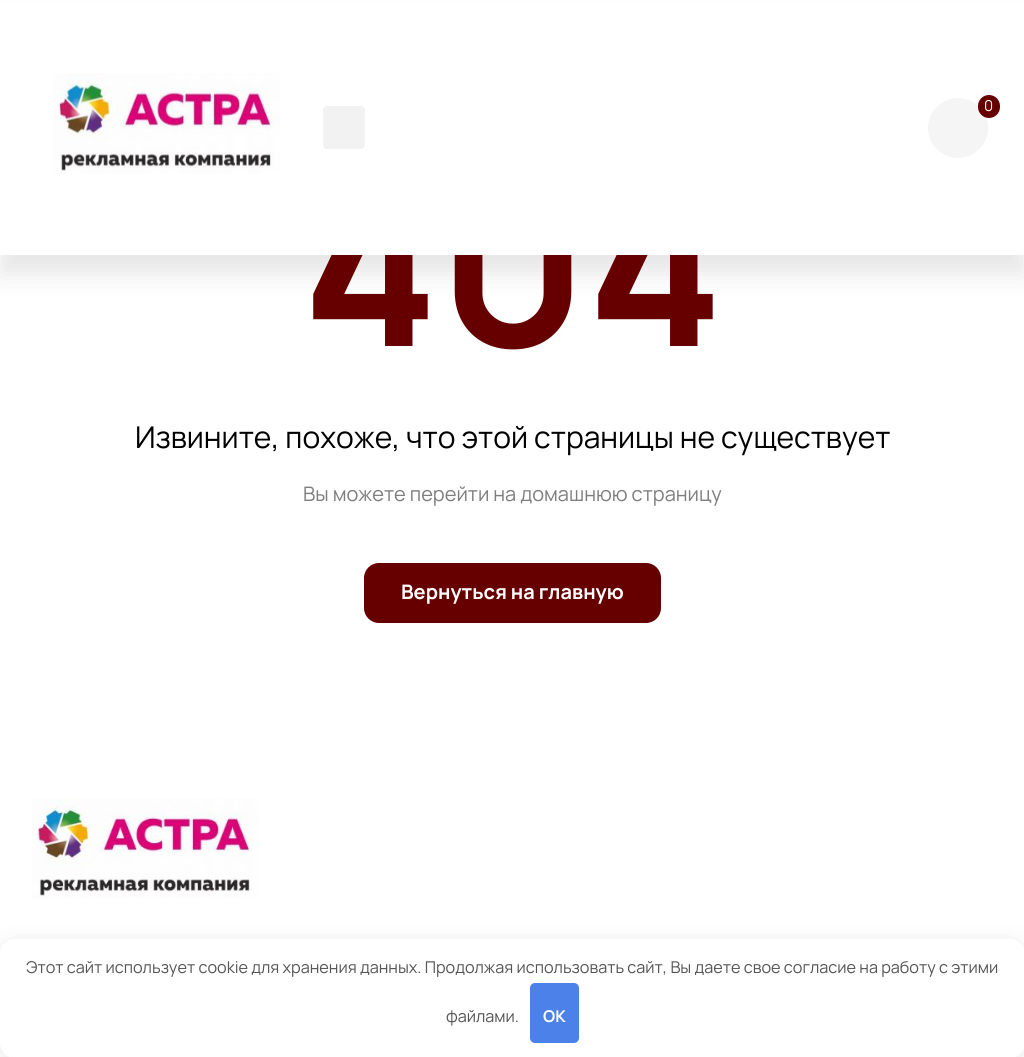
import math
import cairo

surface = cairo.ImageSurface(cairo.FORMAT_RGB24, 1024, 1057)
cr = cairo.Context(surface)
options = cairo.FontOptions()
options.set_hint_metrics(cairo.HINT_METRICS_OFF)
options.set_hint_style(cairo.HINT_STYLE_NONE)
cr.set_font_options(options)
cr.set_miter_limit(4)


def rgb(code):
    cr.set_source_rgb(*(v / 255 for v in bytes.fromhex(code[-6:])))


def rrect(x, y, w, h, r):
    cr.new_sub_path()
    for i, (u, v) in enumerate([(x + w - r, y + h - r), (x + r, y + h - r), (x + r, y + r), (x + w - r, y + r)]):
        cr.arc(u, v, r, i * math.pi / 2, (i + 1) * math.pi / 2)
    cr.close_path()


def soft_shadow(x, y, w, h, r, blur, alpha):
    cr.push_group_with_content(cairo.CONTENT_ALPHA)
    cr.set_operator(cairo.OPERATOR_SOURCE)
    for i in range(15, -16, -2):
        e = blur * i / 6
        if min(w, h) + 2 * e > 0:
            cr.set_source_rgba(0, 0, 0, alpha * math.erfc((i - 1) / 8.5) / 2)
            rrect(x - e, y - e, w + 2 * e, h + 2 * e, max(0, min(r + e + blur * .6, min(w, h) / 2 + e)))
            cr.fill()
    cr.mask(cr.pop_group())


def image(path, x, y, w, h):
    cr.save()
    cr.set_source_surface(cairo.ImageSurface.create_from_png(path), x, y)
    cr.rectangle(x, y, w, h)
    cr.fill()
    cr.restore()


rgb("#ffffff")
cr.paint()
rgb("#000000")
soft_shadow(0, 19, 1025, 255, 0, 12.5, 0.1)
rgb("#660000")
rrect(364, 563, 297, 60, 15)
cr.fill()
image("img/2.png", 32, 798, 227, 101)
rgb("#292c38")
soft_shadow(6, 949, 1013, 106, 9, 12.5, 0.2)
rgb("#ffffff")
rrect(0, 939, 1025, 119, 15)
cr.fill()
rgb("#4b81e8")
rrect(530, 983, 49, 60, 5)
cr.fill()
cr.select_font_face("Manrope", cairo.FONT_SLANT_NORMAL, cairo.FONT_WEIGHT_BOLD)
cr.set_font_size(225)
rgb("#660000")
cr.move_to(302, 346)
cr.show_text("404")
rgb("#ffffff")
cr.rectangle(0, 3, 1024, 252)
cr.fill()
rgb("#f5f5f5")
cr.arc(958, 128, 30, 0, 2 * math.pi)
cr.fill()
rgb("#660000")
rrect(978, 95, 22, 23, 11)
cr.fill()
cr.select_font_face("Manrope")
cr.set_font_size(15)
rgb("#ffffff")
cr.move_to(984, 111)
cr.show_text("0")
rgb("#f2f2f2")
rrect(323, 106, 42, 43, 4)
cr.fill()
image("img/1.png", 53, 73, 227, 101)
cr.set_font_size(30)
rgb("#000000")
cr.move_to(135, 448)
cr.show_text("Извините, похоже, что этой страницы не существует")
cr.set_font_size(20)
rgb("#7e7e7e")
cr.move_to(303, 501)
cr.show_text("Вы можете перейти на домашнюю страницу")
cr.select_font_face("Manrope", cairo.FONT_SLANT_NORMAL, cairo.FONT_WEIGHT_BOLD)
rgb("#ffffff")
cr.move_to(401, 599)
cr.show_text("Вернуться на главную")
cr.select_font_face("Manrope")
cr.set_font_size(16.25)
rgb("#555555")
cr.move_to(26, 973)
cr.show_text("Этот сайт использует cookie для хранения данных. Продолжая использовать сайт, Вы даете свое согласие на работу с этими")
cr.move_to(446, 1022)
cr.show_text("файлами.")
cr.select_font_face("Manrope", cairo.FONT_SLANT_NORMAL, cairo.FONT_WEIGHT_BOLD)
rgb("#ffffff")
cr.move_to(543, 1022)
cr.show_text("OK")
surface.write_to_png("page.png")
